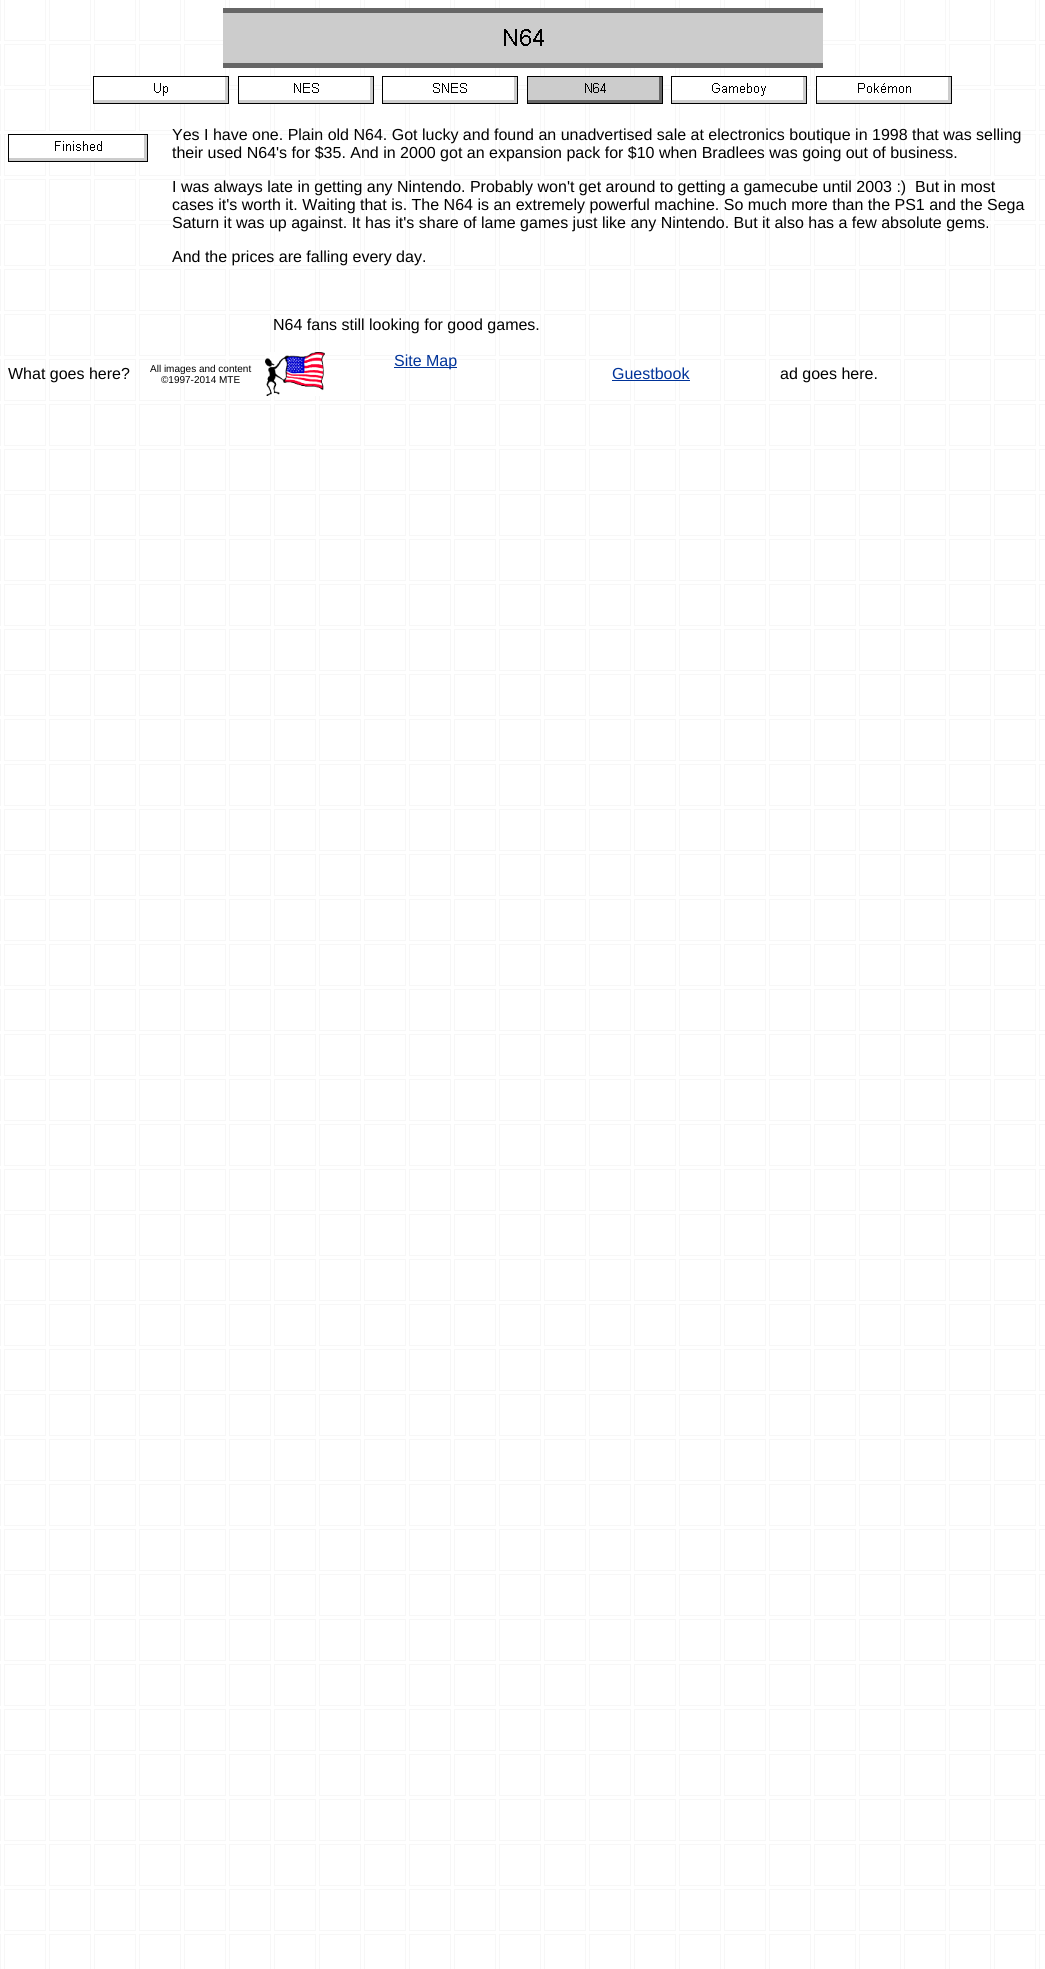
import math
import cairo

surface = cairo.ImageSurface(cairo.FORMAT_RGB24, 1045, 1969)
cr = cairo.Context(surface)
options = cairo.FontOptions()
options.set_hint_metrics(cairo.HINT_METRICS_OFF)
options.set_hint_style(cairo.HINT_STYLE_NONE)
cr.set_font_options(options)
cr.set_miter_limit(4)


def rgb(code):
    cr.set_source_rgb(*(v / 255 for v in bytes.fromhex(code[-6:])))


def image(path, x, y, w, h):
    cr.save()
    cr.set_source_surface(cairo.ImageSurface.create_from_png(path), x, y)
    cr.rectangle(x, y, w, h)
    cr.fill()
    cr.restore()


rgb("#ffffff")
cr.paint()
image("img/1.png", 0, 0, 1045, 1969)
image("img/2.png", 223, 8, 600, 60)
image("img/3.png", 93, 76, 136, 28)
image("img/4.png", 238, 76, 136, 28)
image("img/5.png", 382, 76, 136, 28)
image("img/6.png", 527, 76, 136, 28)
image("img/7.png", 671, 76, 136, 28)
image("img/8.png", 816, 76, 136, 28)
image("img/9.png", 8, 134, 140, 28)
image("img/10.png", 265, 352, 60, 44)
rgb("#003399")
cr.rectangle(394, 367, 63, 1)
cr.fill()
cr.rectangle(612, 380, 78, 1)
cr.fill()
cr.select_font_face("Liberation Sans")
cr.set_font_size(16)
rgb("#000000")
for x, y, s in [
    (172, 140, "Yes I have one. Plain old N64. Got lucky and found an unadvertised sale at electronics boutique in 1998 that was selling"),
    (172, 158, "their used N64's for $35. And in 2000 got an expansion pack for $10 when Bradlees was going out of business."),
    (172, 192, "I was always late in getting any Nintendo. Probably won't get around to getting a gamecube until 2003 :)  But in most"),
    (172, 210, "cases it's worth it. Waiting that is. The N64 is an extremely powerful machine. So much more than the PS1 and the Sega"),
    (172, 228, "Saturn it was up against. It has it's share of lame games just like any Nintendo. But it also has a few absolute gems."),
    (172, 262, "And the prices are falling every day."),
    (273, 330, "N64 fans still looking for good games."),
]:
    cr.move_to(x, y)
    cr.show_text(s)
rgb("#003399")
cr.move_to(394, 366)
cr.show_text("Site Map")
rgb("#000000")
cr.move_to(8, 379)
cr.show_text("What goes here?")
cr.set_font_size(10)
cr.move_to(150, 372)
cr.show_text("All images and content")
cr.move_to(161, 383)
cr.show_text("©1997-2014 MTE")
cr.set_font_size(16)
rgb("#003399")
cr.move_to(612, 379)
cr.show_text("Guestbook")
rgb("#000000")
cr.move_to(780, 379)
cr.show_text("ad goes here.")
surface.write_to_png("page.png")
